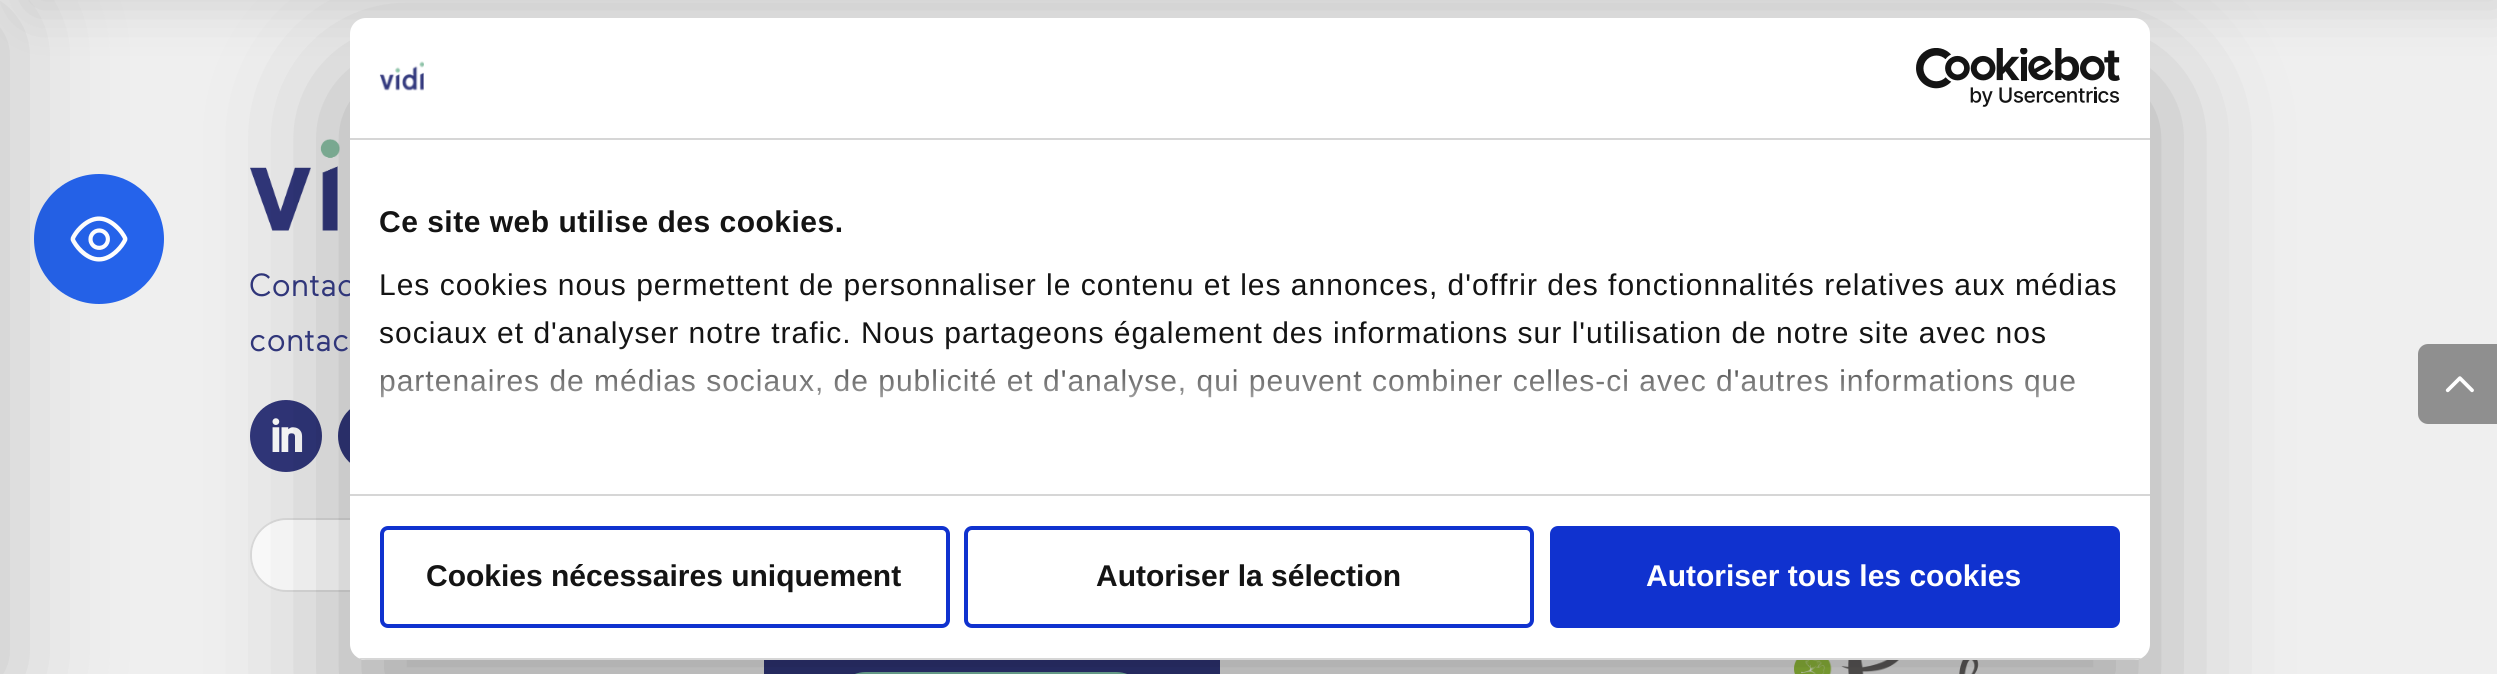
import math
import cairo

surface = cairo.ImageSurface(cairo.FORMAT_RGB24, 2497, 674)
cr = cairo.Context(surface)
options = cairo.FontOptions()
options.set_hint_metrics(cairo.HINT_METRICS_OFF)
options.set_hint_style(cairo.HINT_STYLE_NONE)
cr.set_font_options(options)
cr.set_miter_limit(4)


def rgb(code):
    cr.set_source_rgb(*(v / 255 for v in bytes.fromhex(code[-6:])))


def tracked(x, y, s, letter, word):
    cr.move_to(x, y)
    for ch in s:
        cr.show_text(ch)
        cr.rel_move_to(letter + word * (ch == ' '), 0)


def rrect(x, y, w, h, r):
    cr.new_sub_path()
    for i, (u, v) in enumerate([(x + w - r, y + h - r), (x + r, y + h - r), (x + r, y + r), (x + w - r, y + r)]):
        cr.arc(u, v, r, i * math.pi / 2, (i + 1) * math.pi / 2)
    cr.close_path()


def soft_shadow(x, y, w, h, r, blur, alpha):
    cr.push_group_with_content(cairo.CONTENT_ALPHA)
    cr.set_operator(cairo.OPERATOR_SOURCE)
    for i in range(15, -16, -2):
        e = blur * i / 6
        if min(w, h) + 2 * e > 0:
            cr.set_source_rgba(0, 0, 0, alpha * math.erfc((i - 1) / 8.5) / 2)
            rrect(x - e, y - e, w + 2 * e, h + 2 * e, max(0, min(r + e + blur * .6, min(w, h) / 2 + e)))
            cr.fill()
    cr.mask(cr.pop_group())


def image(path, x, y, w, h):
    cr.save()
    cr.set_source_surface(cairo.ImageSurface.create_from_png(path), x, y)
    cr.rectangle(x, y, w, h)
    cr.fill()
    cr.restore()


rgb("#efefef")
cr.paint()
rgb("#333333")
soft_shadow(30, -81, 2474, 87, 0, 27, 0.16)
image("img/2.png", 250, 139, 90, 92)
rgb("#30367a")
cr.arc(286, 436, 36, 0, 2 * math.pi)
cr.fill()
image("img/3.png", 272, 418, 31, 34)
cr.arc(374, 436, 36, 0, 2 * math.pi)
cr.fill()
cr.new_path()
cr.move_to(287, 519)
cr.line_to(703, 519)
cr.line_to(703, 591)
cr.line_to(287, 591)
cr.curve_to(267, 591, 251, 575, 251, 555)
cr.curve_to(251, 535, 267, 519, 287, 519)
cr.close_path()
rgb("#dddddd")
cr.stroke()
rgb("#ffffff")
cr.new_path()
cr.move_to(287, 520)
cr.line_to(544, 520)
cr.line_to(544, 590)
cr.line_to(287, 590)
cr.curve_to(267.5, 590, 252, 574.5, 252, 555)
cr.curve_to(252, 535.5, 267.5, 520, 287, 520)
cr.close_path()
cr.fill()
rgb("#30367a")
cr.rectangle(764, 660, 456, 14)
cr.fill()
rgb("#80c5ac")
rrect(834, 672, 314, 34, 32)
cr.fill()
image("img/4.png", 1794, 660, 185, 14)
rgb("#000000")
soft_shadow(350, 82, 1800, 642, 16, 68, 0.3)
rgb("#2563eb")
cr.arc(99, 239, 65, 0, 2 * math.pi)
cr.fill()
image("img/1.png", 70, 216, 58, 46)
rgb("#000000")
soft_shadow(-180, 20, 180, 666, 0, 60, 0.2)
rgb("#8f8f8f")
cr.new_path()
cr.move_to(2428, 344)
cr.line_to(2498, 344)
cr.line_to(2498, 424)
cr.line_to(2428, 424)
cr.curve_to(2422.5, 424, 2418, 419.5, 2418, 414)
cr.line_to(2418, 354)
cr.curve_to(2418, 348.5, 2422.5, 344, 2428, 344)
cr.close_path()
cr.fill()
image("img/7.png", 2445, 376, 29, 17)
cr.select_font_face("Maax")
cr.set_font_size(32)
rgb("#30367a")
cr.move_to(249, 296)
cr.show_text("Contac")
cr.move_to(249, 351)
cr.show_text("contac")
rgb("#ffffff")
rrect(350, 18, 1800, 642, 16)
cr.fill()
rgb("#d6d6d6")
cr.rectangle(350, 138, 1800, 2)
cr.fill()
image("img/5.png", 379, 61, 45, 30)
image("img/6.png", 1916, 48, 204, 59)
cr.rectangle(350, 494, 1800, 2)
cr.fill()
cr.select_font_face("Liberation Sans", cairo.FONT_SLANT_NORMAL, cairo.FONT_WEIGHT_BOLD)
cr.set_font_size(30)
rgb("#141414")
tracked(379, 232, "Ce site web utilise des cookies.", 0.5, 0)
cr.select_font_face("Liberation Sans")
for x, y, s in [
    (379, 295, "Les cookies nous permettent de personnaliser le contenu et les annonces, d'offrir des fonctionnalités relatives aux médias"),
    (379, 343, "sociaux et d'analyser notre trafic. Nous partageons également des informations sur l'utilisation de notre site avec nos"),
    (379, 391, "partenaires de médias sociaux, de publicité et d'analyse, qui peuvent combiner celles-ci avec d'autres informations que"),
]:
    tracked(x, y, s, 1, 0)
gradient = cairo.LinearGradient(1237, 493, 1237, 343)
gradient.add_color_stop_rgba(0, 1, 1, 1, 1)
gradient.add_color_stop_rgba(0.5, 1, 1, 1, 0.8)
gradient.add_color_stop_rgba(1, 1, 1, 1, 0)
cr.set_source(gradient)
cr.rectangle(380, 345, 1695, 53)
cr.fill()
cr.save()
rrect(350, 18, 1800, 642, 16)
cr.clip()
rgb("#d6d6d6")
cr.rectangle(350, 658, 1800, 2)
cr.fill()
cr.restore()
rrect(382, 528, 566, 98, 6)
rgb("#1032cf")
cr.set_line_width(4)
cr.stroke()
cr.select_font_face("Liberation Sans", cairo.FONT_SLANT_NORMAL, cairo.FONT_WEIGHT_BOLD)
rgb("#141414")
cr.move_to(426, 586)
cr.show_text("Cookies nécessaires uniquement")
rrect(966, 528, 566, 98, 6)
rgb("#1032cf")
cr.stroke()
rgb("#141414")
cr.move_to(1096, 586)
cr.show_text("Autoriser la sélection")
rgb("#1032cf")
rrect(1552, 528, 566, 98, 6)
cr.fill_preserve()
cr.stroke()
rgb("#ffffff")
cr.move_to(1646, 586)
cr.show_text("Autoriser tous les cookies")
surface.write_to_png("page.png")
